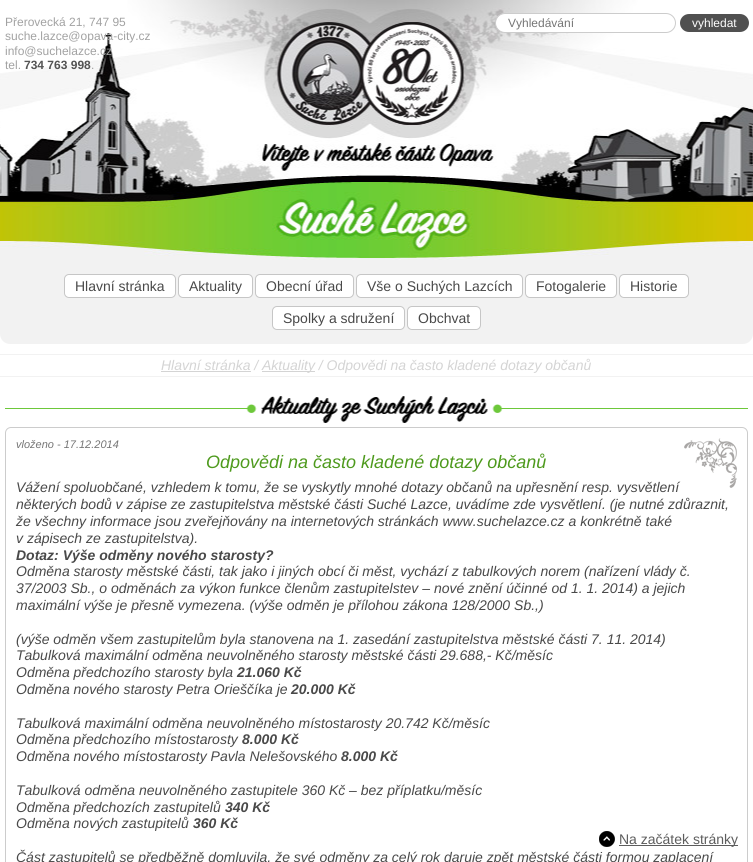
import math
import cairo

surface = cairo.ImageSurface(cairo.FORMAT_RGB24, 753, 862)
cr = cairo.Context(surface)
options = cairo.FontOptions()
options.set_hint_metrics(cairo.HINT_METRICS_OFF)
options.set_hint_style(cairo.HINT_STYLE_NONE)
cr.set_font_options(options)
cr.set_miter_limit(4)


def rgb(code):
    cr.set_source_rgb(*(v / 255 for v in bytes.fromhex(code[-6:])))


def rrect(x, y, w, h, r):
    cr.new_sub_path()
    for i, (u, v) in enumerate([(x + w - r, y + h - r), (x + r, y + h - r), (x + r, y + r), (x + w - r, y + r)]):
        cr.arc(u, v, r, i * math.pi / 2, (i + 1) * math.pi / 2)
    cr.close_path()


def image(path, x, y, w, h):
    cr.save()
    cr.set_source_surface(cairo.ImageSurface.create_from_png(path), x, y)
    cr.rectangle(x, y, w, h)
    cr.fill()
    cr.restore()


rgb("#ffffff")
cr.paint()
image("img/1.png", 0, 0, 753, 260)
rgb("#ffffff")
rrect(495.5, 13.5, 180, 19, 9.5)
cr.fill_preserve()
rgb("#cccccc")
cr.set_line_width(1)
cr.stroke()
rgb("#505050")
rrect(680, 14, 69, 18, 9)
cr.fill()
rgb("#f2f2f2")
cr.new_path()
cr.move_to(0, 260)
cr.line_to(753, 260)
cr.line_to(753, 334)
cr.curve_to(753, 339.5, 748.5, 344, 743, 344)
cr.line_to(10, 344)
cr.curve_to(4.5, 344, 0, 339.5, 0, 334)
cr.close_path()
cr.fill()
rgb("#ffffff")
rrect(64.5, 274.5, 111, 23, 4.5)
cr.fill_preserve()
rgb("#c6c6c6")
cr.stroke()
rgb("#ffffff")
rrect(178.5, 274.5, 74, 23, 4.5)
cr.fill_preserve()
rgb("#c6c6c6")
cr.stroke()
rgb("#ffffff")
rrect(255.5, 274.5, 98, 23, 4.5)
cr.fill_preserve()
rgb("#c6c6c6")
cr.stroke()
rgb("#ffffff")
rrect(356.5, 274.5, 166, 23, 4.5)
cr.fill_preserve()
rgb("#c6c6c6")
cr.stroke()
rgb("#ffffff")
rrect(525.5, 274.5, 91, 23, 4.5)
cr.fill_preserve()
rgb("#c6c6c6")
cr.stroke()
rgb("#ffffff")
rrect(619.5, 274.5, 69, 23, 4.5)
cr.fill_preserve()
rgb("#c6c6c6")
cr.stroke()
rgb("#ffffff")
rrect(272.5, 306.5, 132, 23, 4.5)
cr.fill_preserve()
rgb("#c6c6c6")
cr.stroke()
rgb("#ffffff")
rrect(407.5, 306.5, 73, 23, 4.5)
cr.fill_preserve()
rgb("#c6c6c6")
cr.stroke()
for x, y, w, h, color in [
    (0, 354, 753, 1, "#f2f2f2"),
    (0, 376, 753, 1, "#f2f2f2"),
    (161, 371, 90, 1, "#d4d4d4"),
    (262, 371, 53, 1, "#d4d4d4"),
]:
    rgb(color)
    cr.rectangle(x, y, w, h)
    cr.fill()
image("img/2.png", 5, 396, 743, 27)
image("img/3.png", 684, 438, 53, 50)
rrect(5.5, 427.5, 742, 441, 5.5)
rgb("#cccccc")
cr.stroke()
image("img/4.png", 599, 831, 16, 16)
rgb("#5d5d5d")
cr.rectangle(619, 845, 119, 1)
cr.fill()
cr.select_font_face("Liberation Sans")
cr.set_font_size(12)
rgb("#a2a2a2")
for x, y, s in [
    (5, 26, "Přerovecká 21, 747 95"),
    (5, 40, "suche.lazce@opava-city.cz"),
    (5, 55, "info@suchelazce.cz"),
    (5, 69, "tel."),
]:
    cr.move_to(x, y)
    cr.show_text(s)
cr.select_font_face("Liberation Sans", cairo.FONT_SLANT_NORMAL, cairo.FONT_WEIGHT_BOLD)
rgb("#545454")
cr.move_to(24, 69)
cr.show_text("734 763 998")
cr.select_font_face("Liberation Sans")
rgb("#a2a2a2")
cr.move_to(91, 69)
cr.show_text(".")
rgb("#757575")
cr.move_to(508, 27)
cr.show_text("Vyhledávání")
rgb("#ffffff")
cr.move_to(692, 27)
cr.show_text("vyhledat")
cr.set_font_size(14)
rgb("#494949")
for x, y, s in [
    (75, 291, "Hlavní stránka"),
    (189, 291, "Aktuality"),
    (266, 291, "Obecní úřad"),
    (367, 291, "Vše o Suchých Lazcích"),
    (536, 291, "Fotogalerie"),
    (630, 291, "Historie"),
    (283, 323, "Spolky a sdružení"),
    (418, 323, "Obchvat"),
]:
    cr.move_to(x, y)
    cr.show_text(s)
cr.select_font_face("Liberation Sans", cairo.FONT_SLANT_ITALIC)
rgb("#d4d4d4")
cr.move_to(161, 370)
cr.show_text("Hlavní stránka /")
cr.move_to(262, 370)
cr.show_text("Aktuality / Odpovědi na často kladené dotazy občanů")
cr.set_font_size(11)
rgb("#757575")
cr.move_to(16, 448)
cr.show_text("vloženo - 17.12.2014")
cr.set_font_size(18)
rgb("#4e9a1d")
cr.move_to(206, 468)
cr.show_text("Odpovědi na často kladené dotazy občanů")
cr.set_font_size(14)
rgb("#494949")
for x, y, s in [
    (16, 492, "Vážení spoluobčané, vzhledem k tomu, že se vyskytly mnohé dotazy občanů na upřesnění resp. vysvětlení"),
    (16, 509, "některých bodů v zápise ze zastupitelstva městské části Suché Lazce, uvádíme zde vysvětlení. (je nutné zdůraznit,"),
    (16, 526, "že všechny informace jsou zveřejňovány na internetových stránkách www.suchelazce.cz a konkrétně také"),
    (16, 543, "v zápisech ze zastupitelstva)."),
]:
    cr.move_to(x, y)
    cr.show_text(s)
cr.select_font_face("Liberation Sans", cairo.FONT_SLANT_ITALIC, cairo.FONT_WEIGHT_BOLD)
cr.move_to(16, 560)
cr.show_text("Dotaz: Výše odměny nového starosty?")
cr.select_font_face("Liberation Sans", cairo.FONT_SLANT_ITALIC)
for x, y, s in [
    (16, 576, "Odměna starosty městské části, tak jako i jiných obcí či měst, vychází z tabulkových norem (nařízení vlády č."),
    (16, 593, "37/2003 Sb., o odměnách za výkon funkce členům zastupitelstev – nové znění účinné od 1. 1. 2014) a jejich"),
    (16, 610, "maximální výše je přesně vymezena. (výše odměn je přílohou zákona 128/2000 Sb.,)"),
    (16, 644, "(výše odměn všem zastupitelům byla stanovena na 1. zasedání zastupitelstva městské části 7. 11. 2014)"),
    (16, 660, "Tabulková maximální odměna neuvolněného starosty městské části 29.688,- Kč/měsíc"),
    (16, 677, "Odměna předchozího starosty byla"),
]:
    cr.move_to(x, y)
    cr.show_text(s)
cr.select_font_face("Liberation Sans", cairo.FONT_SLANT_ITALIC, cairo.FONT_WEIGHT_BOLD)
cr.move_to(237, 677)
cr.show_text("21.060 Kč")
cr.select_font_face("Liberation Sans", cairo.FONT_SLANT_ITALIC)
cr.move_to(16, 694)
cr.show_text("Odměna nového starosty Petra Orieščíka je")
cr.select_font_face("Liberation Sans", cairo.FONT_SLANT_ITALIC, cairo.FONT_WEIGHT_BOLD)
cr.move_to(291, 694)
cr.show_text("20.000 Kč")
cr.select_font_face("Liberation Sans", cairo.FONT_SLANT_ITALIC)
cr.move_to(16, 728)
cr.show_text("Tabulková maximální odměna neuvolněného místostarosty 20.742 Kč/měsíc")
cr.move_to(16, 744)
cr.show_text("Odměna předchozího místostarosty")
cr.select_font_face("Liberation Sans", cairo.FONT_SLANT_ITALIC, cairo.FONT_WEIGHT_BOLD)
cr.move_to(242, 744)
cr.show_text("8.000 Kč")
cr.select_font_face("Liberation Sans", cairo.FONT_SLANT_ITALIC)
cr.move_to(16, 761)
cr.show_text("Odměna nového místostarosty Pavla Nelešovského")
cr.select_font_face("Liberation Sans", cairo.FONT_SLANT_ITALIC, cairo.FONT_WEIGHT_BOLD)
cr.move_to(341, 761)
cr.show_text("8.000 Kč")
cr.select_font_face("Liberation Sans", cairo.FONT_SLANT_ITALIC)
cr.move_to(16, 795)
cr.show_text("Tabulková odměna neuvolněného zastupitele 360 Kč – bez příplatku/měsíc")
cr.move_to(16, 812)
cr.show_text("Odměna předchozích zastupitelů")
cr.select_font_face("Liberation Sans", cairo.FONT_SLANT_ITALIC, cairo.FONT_WEIGHT_BOLD)
cr.move_to(225, 812)
cr.show_text("340 Kč")
cr.select_font_face("Liberation Sans", cairo.FONT_SLANT_ITALIC)
cr.move_to(16, 828)
cr.show_text("Odměna nových zastupitelů")
cr.select_font_face("Liberation Sans", cairo.FONT_SLANT_ITALIC, cairo.FONT_WEIGHT_BOLD)
cr.move_to(193, 828)
cr.show_text("360 Kč")
cr.select_font_face("Liberation Sans", cairo.FONT_SLANT_ITALIC)
cr.move_to(16, 862)
cr.show_text("Část zastupitelů se předběžně domluvila, že své odměny za celý rok daruje zpět městské části formou zaplacení")
cr.set_source_rgba(1, 1, 1, 0.8)
cr.rectangle(601, 851, 114, 1)
cr.fill()
cr.select_font_face("Liberation Sans")
rgb("#5d5d5d")
cr.move_to(619, 844)
cr.show_text("Na začátek stránky")
surface.write_to_png("page.png")
